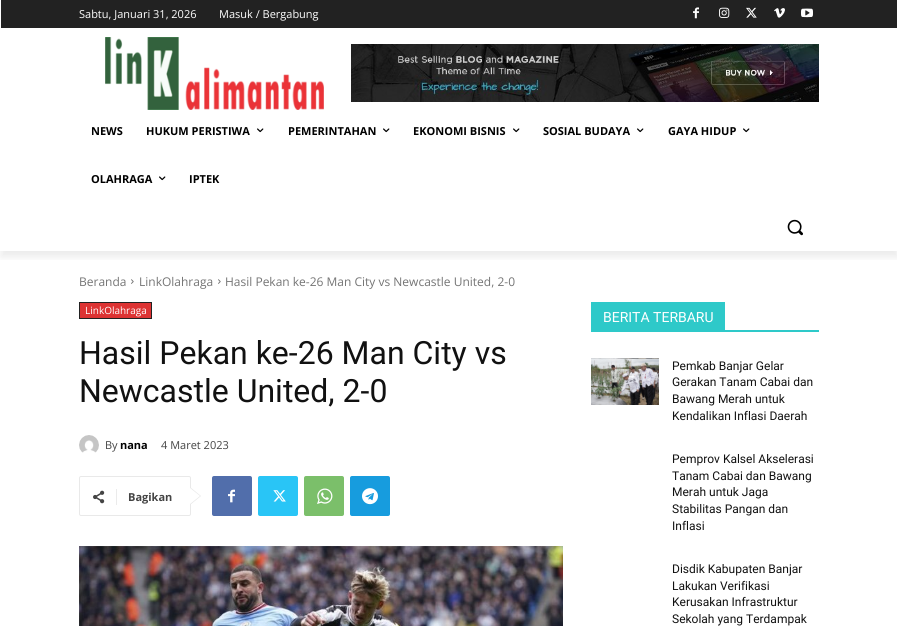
import math
import cairo

surface = cairo.ImageSurface(cairo.FORMAT_RGB24, 897, 626)
cr = cairo.Context(surface)
options = cairo.FontOptions()
options.set_hint_metrics(cairo.HINT_METRICS_OFF)
options.set_hint_style(cairo.HINT_STYLE_NONE)
cr.set_font_options(options)
cr.set_miter_limit(4)


def rgb(code):
    cr.set_source_rgb(*(v / 255 for v in bytes.fromhex(code[-6:])))


def rrect(x, y, w, h, r):
    cr.new_sub_path()
    for i, (u, v) in enumerate([(x + w - r, y + h - r), (x + r, y + h - r), (x + r, y + r), (x + w - r, y + r)]):
        cr.arc(u, v, r, i * math.pi / 2, (i + 1) * math.pi / 2)
    cr.close_path()


def soft_shadow(x, y, w, h, r, blur, alpha):
    cr.push_group_with_content(cairo.CONTENT_ALPHA)
    cr.set_operator(cairo.OPERATOR_SOURCE)
    for i in range(15, -16, -2):
        e = blur * i / 6
        if min(w, h) + 2 * e > 0:
            cr.set_source_rgba(0, 0, 0, alpha * math.erfc((i - 1) / 8.5) / 2)
            rrect(x - e, y - e, w + 2 * e, h + 2 * e, max(0, min(r + e + blur * .6, min(w, h) / 2 + e)))
            cr.fill()
    cr.mask(cr.pop_group())


def image(path, x, y, w, h):
    cr.save()
    cr.set_source_surface(cairo.ImageSurface.create_from_png(path), x, y)
    cr.rectangle(x, y, w, h)
    cr.fill()
    cr.restore()


rgb("#ffffff")
cr.paint()
rgb("#222222")
cr.rectangle(1, 0, 896, 28)
cr.fill()
image("img/1.png", 693, 7, 6, 12)
image("img/2.png", 719, 7, 11, 11)
image("img/3.png", 746, 7, 11, 11)
image("img/4.png", 774, 8, 11, 10)
image("img/5.png", 801, 8, 12, 10)
image("img/6.png", 105, 37, 219, 73)
image("img/7.png", 351, 44, 468, 58)
cr.save()
cr.rectangle(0, 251, 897, 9)
cr.clip()
rgb("#000000")
soft_shadow(1, 6, 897, 251, 0, 4, 0.08)
cr.restore()
image("img/8.png", 257, 128, 7, 5)
image("img/8.png", 383, 128, 7, 5)
image("img/8.png", 513, 128, 7, 5)
image("img/8.png", 637, 128, 7, 5)
image("img/8.png", 743, 128, 7, 5)
image("img/8.png", 159, 176, 7, 5)
image("img/9.png", 787, 219, 16, 17)
image("img/10.png", 131, 279, 3, 5)
image("img/10.png", 218, 279, 3, 5)
rgb("#dd3333")
cr.rectangle(79.5, 302.5, 72, 16)
cr.fill_preserve()
rgb("#222222")
cr.set_line_width(1)
cr.stroke()
image("img/11.png", 79, 435, 20, 18)
rrect(79.5, 476.5, 111, 39, 1.5)
rgb("#e9e9e9")
cr.stroke()
cr.new_path()
cr.move_to(190, 505)
cr.line_to(190, 487)
cr.line_to(201, 496)
cr.close_path()
cr.fill()
image("img/12.png", 93, 490, 12, 14)
rgb("#ebebeb")
cr.rectangle(116, 489, 1, 16)
cr.fill()
rgb("#ffffff")
cr.new_path()
cr.move_to(190, 504)
cr.line_to(190, 488)
cr.line_to(200, 496)
cr.close_path()
cr.fill()
rgb("#516eab")
rrect(212, 476, 40, 40, 2)
cr.fill()
image("img/13.png", 228, 489, 7, 14)
rgb("#29c5f6")
rrect(258, 476, 40, 40, 2)
cr.fill()
image("img/14.png", 273, 490, 13, 12)
rgb("#7bbf6a")
rrect(304, 476, 40, 40, 2)
cr.fill()
image("img/15.png", 317, 488, 16, 16)
rgb("#179cde")
rrect(350, 476, 40, 40, 2)
cr.fill()
image("img/16.png", 362, 488, 16, 17)
image("img/17.png", 79, 546, 484, 80)
rgb("#2ec9c9")
cr.rectangle(591, 330, 228, 2)
cr.fill()
cr.rectangle(591, 302, 134, 28)
cr.fill()
image("img/18.png", 591, 358, 68, 47)
cr.select_font_face("Open Sans")
cr.set_font_size(11)
rgb("#ffffff")
cr.move_to(79, 18)
cr.show_text("Sabtu, Januari 31, 2026")
cr.move_to(219, 18)
cr.show_text("Masuk / Bergabung")
cr.select_font_face("Open Sans", cairo.FONT_SLANT_NORMAL, cairo.FONT_WEIGHT_BOLD)
rgb("#000000")
for x, y, s in [
    (91, 135, "NEWS"),
    (146, 135, "HUKUM PERISTIWA"),
    (288, 135, "PEMERINTAHAN"),
    (413, 135, "EKONOMI BISNIS"),
    (543, 135, "SOSIAL BUDAYA"),
    (668, 135, "GAYA HIDUP"),
    (91, 183, "OLAHRAGA"),
    (189, 183, "IPTEK"),
]:
    cr.move_to(x, y)
    cr.show_text(s)
cr.select_font_face("Open Sans")
cr.set_font_size(12)
rgb("#747474")
for x, y, s in [
    (79, 286, "Beranda"),
    (139, 286, "LinkOlahraga"),
    (225, 286, "Hasil Pekan ke-26 Man City vs Newcastle United, 2-0"),
]:
    cr.move_to(x, y)
    cr.show_text(s)
cr.set_font_size(10)
rgb("#ffffff")
cr.move_to(85, 314)
cr.show_text("LinkOlahraga")
cr.select_font_face("Roboto")
cr.set_font_size(32)
rgb("#111111")
cr.move_to(79, 364)
cr.show_text("Hasil Pekan ke-26 Man City vs")
cr.move_to(79, 402)
cr.show_text("Newcastle United, 2-0")
cr.select_font_face("Open Sans")
cr.set_font_size(11)
rgb("#444444")
cr.move_to(105, 449)
cr.show_text("By")
cr.select_font_face("Open Sans", cairo.FONT_SLANT_NORMAL, cairo.FONT_WEIGHT_BOLD)
rgb("#000000")
cr.move_to(120, 449)
cr.show_text("nana")
cr.select_font_face("Open Sans")
rgb("#444444")
cr.move_to(161, 449)
cr.show_text("4 Maret 2023")
cr.select_font_face("Open Sans", cairo.FONT_SLANT_NORMAL, cairo.FONT_WEIGHT_BOLD)
cr.move_to(128, 501)
cr.show_text("Bagikan")
cr.select_font_face("Roboto")
cr.set_font_size(14)
rgb("#ffffff")
cr.move_to(603, 322)
cr.show_text("BERITA TERBARU")
cr.set_font_size(12)
rgb("#111111")
for x, y, s in [
    (672, 370, "Pemkab Banjar Gelar"),
    (672, 386, "Gerakan Tanam Cabai dan"),
    (672, 403, "Bawang Merah untuk"),
    (672, 420, "Kendalikan Inflasi Daerah"),
    (672, 463, "Pemprov Kalsel Akselerasi"),
    (672, 480, "Tanam Cabai dan Bawang"),
    (672, 496, "Merah untuk Jaga"),
    (672, 513, "Stabilitas Pangan dan"),
    (672, 530, "Inflasi"),
    (672, 573, "Disdik Kabupaten Banjar"),
    (672, 590, "Lakukan Verifikasi"),
    (672, 606, "Kerusakan Infrastruktur"),
    (672, 623, "Sekolah yang Terdampak"),
]:
    cr.move_to(x, y)
    cr.show_text(s)
surface.write_to_png("page.png")
